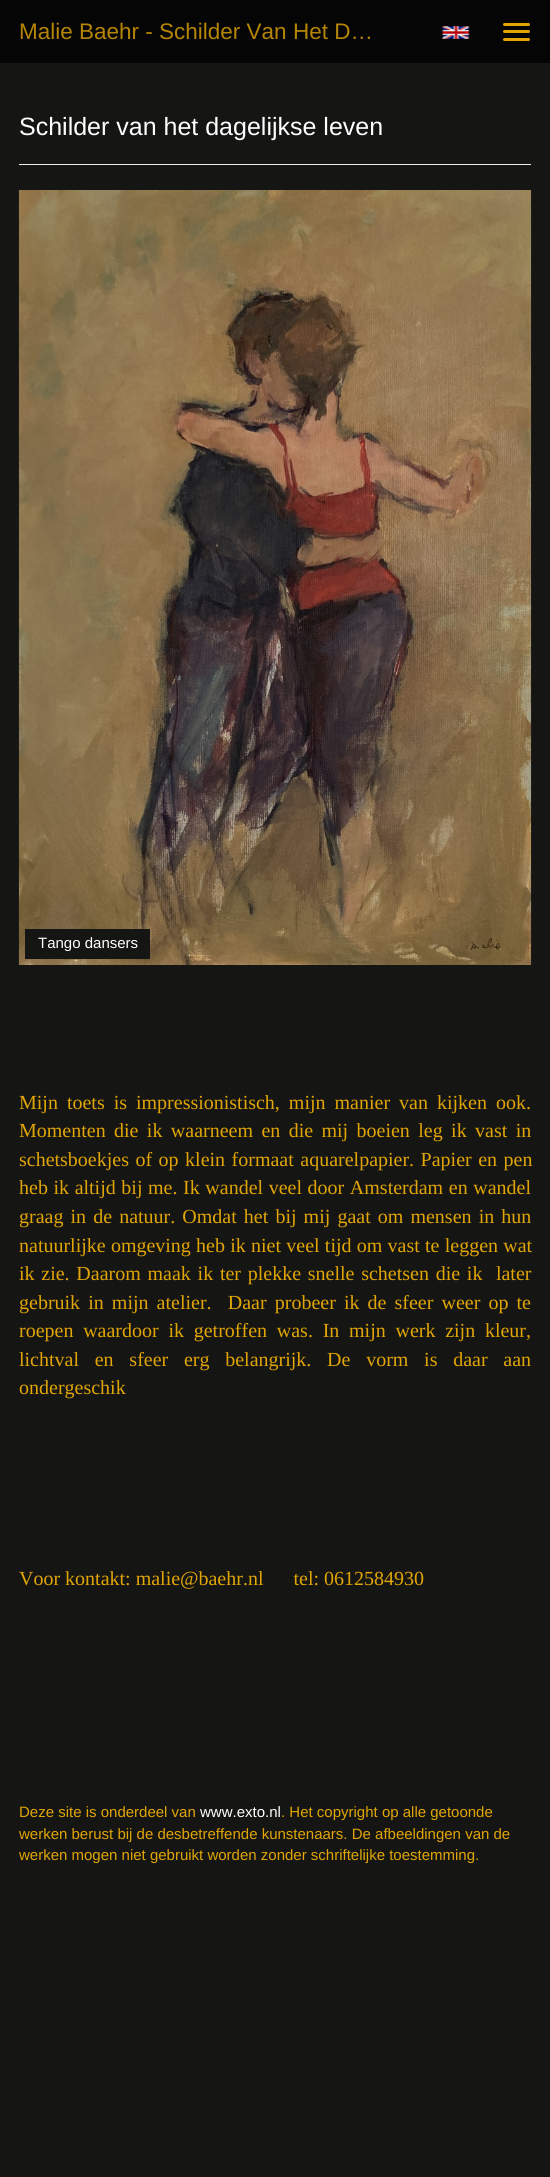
import math
import cairo

surface = cairo.ImageSurface(cairo.FORMAT_RGB24, 550, 2177)
cr = cairo.Context(surface)
options = cairo.FontOptions()
options.set_hint_metrics(cairo.HINT_METRICS_OFF)
options.set_hint_style(cairo.HINT_STYLE_NONE)
cr.set_font_options(options)
cr.set_miter_limit(4)


def rgb(code):
    cr.set_source_rgb(*(v / 255 for v in bytes.fromhex(code[-6:])))


def tracked(x, y, s, letter, word):
    cr.move_to(x, y)
    for ch in s:
        cr.show_text(ch)
        cr.rel_move_to(letter + word * (ch == ' '), 0)


def rrect(x, y, w, h, r):
    cr.new_sub_path()
    for i, (u, v) in enumerate([(x + w - r, y + h - r), (x + r, y + h - r), (x + r, y + r), (x + w - r, y + r)]):
        cr.arc(u, v, r, i * math.pi / 2, (i + 1) * math.pi / 2)
    cr.close_path()


def image(path, x, y, w, h):
    cr.save()
    cr.set_source_surface(cairo.ImageSurface.create_from_png(path), x, y)
    cr.rectangle(x, y, w, h)
    cr.fill()
    cr.restore()


rgb("#151513")
cr.paint()
rgb("#050505")
cr.rectangle(0, 0, 550, 63)
cr.fill()
rgb("#e1a505")
rrect(503, 23, 27, 3, 1.5)
cr.fill()
rrect(503, 30, 27, 3, 1.5)
cr.fill()
rrect(503, 38, 27, 3, 1.5)
cr.fill()
image("img/1.png", 442, 25, 28, 15)
rgb("#eeeeee")
cr.rectangle(19, 164, 512, 1)
cr.fill()
image("img/2.png", 18, 190, 514, 775)
rgb("#151513")
cr.rectangle(25, 929, 125, 30)
cr.fill()
cr.select_font_face("Liberation Sans")
cr.set_font_size(22.5)
rgb("#b58505")
cr.move_to(19, 39)
cr.show_text("Malie Baehr - Schilder Van Het D…")
cr.set_font_size(25)
rgb("#ffffff")
cr.move_to(19, 135)
cr.show_text("Schilder van het dagelijkse leven")
cr.set_font_size(15)
cr.move_to(38, 948)
cr.show_text("Tango dansers")
cr.select_font_face("Liberation Serif")
cr.set_font_size(20)
rgb("#e1a505")
tracked(19, 1109, "Mijn toets is impressionistisch, mijn manier van kijken ook.", 0, 4)
tracked(19, 1137, "Momenten die ik waarneem en die mij boeien leg ik vast in", 0, 3.4)
tracked(19, 1166, "schetsboekjes of op klein formaat aquarelpapier. Papier en pen", 0, 1.5)
tracked(19, 1194, "heb ik altijd bij me. Ik wandel veel door Amsterdam en wandel", 0, 0.6)
tracked(19, 1223, "graag in de natuur. Omdat het bij mij gaat om mensen in hun", 0, 2.1)
tracked(19, 1252, "natuurlijke omgeving heb ik niet veel tijd om vast te leggen wat", 0, 0.25)
tracked(19, 1280, "ik zie. Daarom maak ik ter plekke snelle schetsen die ik  later", 0, 1.75)
tracked(19, 1309, "gebruik in mijn atelier.  Daar probeer ik de sfeer weer op te", 0, 3.1)
tracked(19, 1337, "roepen waardoor ik getroffen was. In mijn werk zijn kleur,", 0, 4.75)
tracked(19, 1366, "lichtval en sfeer erg belangrijk. De vorm is daar aan", 0, 10.75)
cr.move_to(19, 1394)
cr.show_text("ondergeschik")
cr.move_to(19, 1585)
cr.show_text("Voor kontakt: malie@baehr.nl      tel: 0612584930")
cr.select_font_face("Liberation Sans")
cr.set_font_size(15)
cr.move_to(19, 1817)
cr.show_text("Deze site is onderdeel van")
rgb("#ffffff")
cr.move_to(200, 1817)
cr.show_text("www.exto.nl")
rgb("#e1a505")
for x, y, s in [
    (281, 1817, ". Het copyright op alle getoonde"),
    (19, 1839, "werken berust bij de desbetreffende kunstenaars. De afbeeldingen van de"),
    (19, 1860, "werken mogen niet gebruikt worden zonder schriftelijke toestemming."),
]:
    cr.move_to(x, y)
    cr.show_text(s)
surface.write_to_png("page.png")
